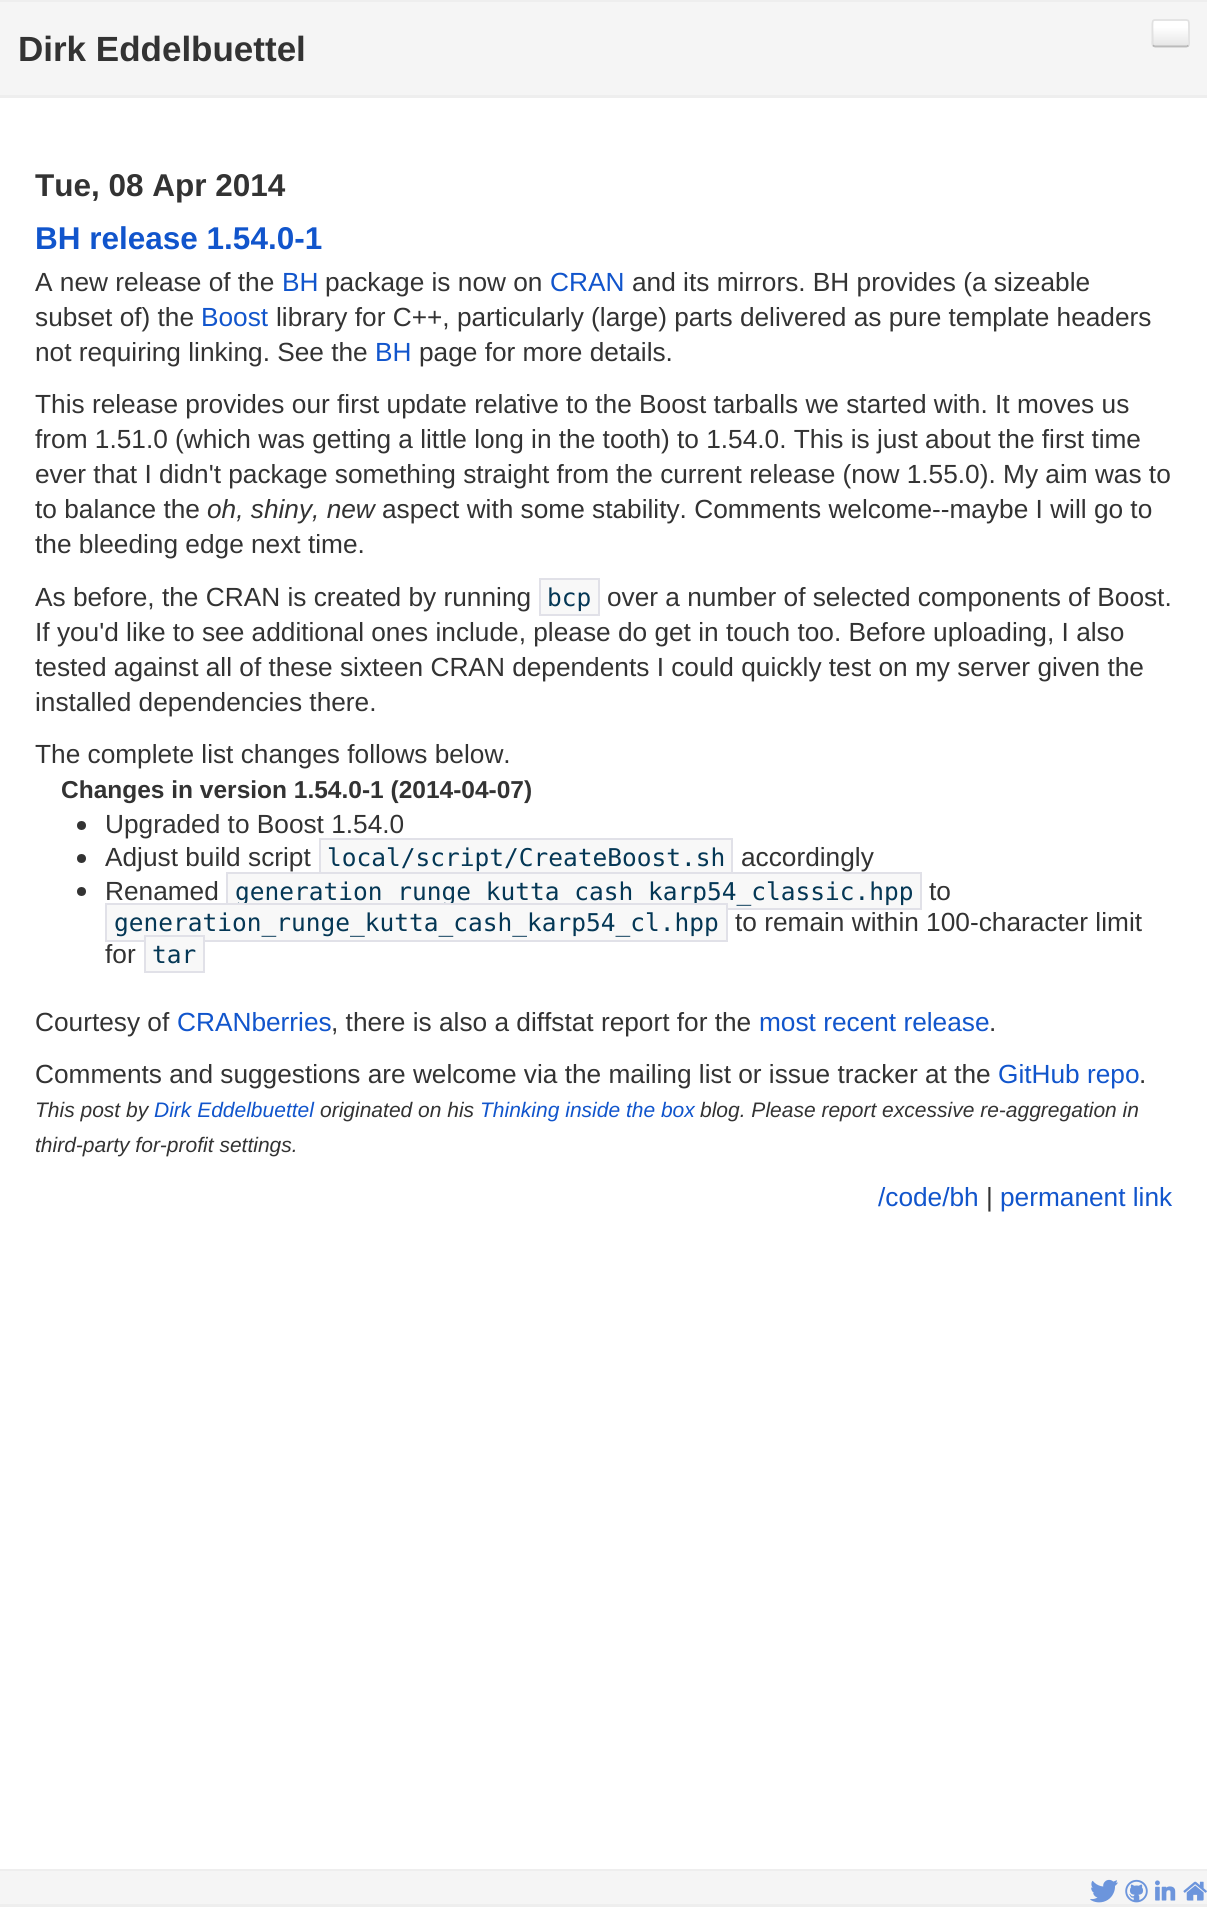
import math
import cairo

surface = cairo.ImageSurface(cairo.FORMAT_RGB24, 1207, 1907)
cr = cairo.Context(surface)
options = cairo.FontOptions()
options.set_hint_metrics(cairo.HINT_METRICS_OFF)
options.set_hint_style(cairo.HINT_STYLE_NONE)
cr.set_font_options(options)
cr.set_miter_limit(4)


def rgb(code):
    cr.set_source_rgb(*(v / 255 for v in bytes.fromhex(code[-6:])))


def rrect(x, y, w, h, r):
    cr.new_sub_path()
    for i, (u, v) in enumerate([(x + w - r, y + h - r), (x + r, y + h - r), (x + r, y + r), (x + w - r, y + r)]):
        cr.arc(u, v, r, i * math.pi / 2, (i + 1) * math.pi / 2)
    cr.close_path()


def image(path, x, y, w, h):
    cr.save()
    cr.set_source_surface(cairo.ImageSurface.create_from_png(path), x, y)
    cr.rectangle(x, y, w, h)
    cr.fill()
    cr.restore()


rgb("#ffffff")
cr.paint()
for x, y, w, h, color in [
    (0, 2, 1207, 93, "#f5f5f5"),
    (0, 95, 1207, 3, "#eeeeee"),
    (0, 0, 1207, 2, "#eeeeee"),
]:
    rgb(color)
    cr.rectangle(x, y, w, h)
    cr.fill()
rgb("#fafafa")
rrect(1152, 19, 38, 28, 4)
cr.fill()
gradient = cairo.LinearGradient(1171, 21, 1171, 46)
gradient.add_color_stop_rgba(0, 1, 1, 1, 1)
gradient.add_color_stop_rgba(0.25, 1, 1, 1, 1)
gradient.add_color_stop_rgba(1, 0.902, 0.902, 0.902, 1)
cr.set_source(gradient)
cr.rectangle(1153, 21, 35, 25)
cr.fill()
cr.new_path()
cr.move_to(1188.5, 45.5)
cr.curve_to(1188, 46, 1187, 46.5, 1186.5, 46.5)
cr.line_to(1155, 46.5)
cr.curve_to(1154.5, 46.5, 1153.5, 46, 1153, 45.5)
cr.set_source_rgba(0, 0, 0, 0.25)
cr.set_line_width(1.8)
cr.stroke()
cr.new_path()
cr.move_to(1153, 45.5)
cr.curve_to(1152, 44.5, 1152.5, 41.5, 1152.5, 40)
cr.line_to(1152.5, 26)
cr.curve_to(1152.5, 19, 1153, 20, 1160, 20)
cr.line_to(1181, 20)
cr.curve_to(1188.5, 20, 1189, 19, 1189, 26)
cr.line_to(1189, 40)
cr.curve_to(1189, 41.5, 1189.5, 44.5, 1188.5, 45.5)
cr.set_source_rgba(0, 0, 0, 0.1)
cr.stroke()
rgb("#f8f8f8")
cr.rectangle(540, 579, 59, 36)
cr.fill_preserve()
rgb("#e1e1e8")
cr.set_line_width(2)
cr.stroke()
rgb("#333333")
cr.arc(81.5, 825.5, 4.5, 0, 2 * math.pi)
cr.fill()
cr.arc(81.5, 858.5, 4.5, 0, 2 * math.pi)
cr.fill()
rgb("#f8f8f8")
cr.rectangle(321, 840, 410, 32)
cr.fill()
rgb("#333333")
cr.arc(81.5, 891.5, 4.5, 0, 2 * math.pi)
cr.fill()
for x, y, w, h, color in [
    (0, 1871, 1207, 33, "#f5f5f5"),
    (0, 1904, 1207, 3, "#eeeeee"),
    (0, 1869, 1207, 2, "#eeeeee"),
]:
    rgb(color)
    cr.rectangle(x, y, w, h)
    cr.fill()
image("img/1.png", 1090, 1879, 28, 24)
image("img/2.png", 1125, 1879, 23, 24)
image("img/3.png", 1155, 1880, 21, 21)
image("img/4.png", 1183, 1881, 24, 20)
cr.select_font_face("Liberation Sans", cairo.FONT_SLANT_NORMAL, cairo.FONT_WEIGHT_BOLD)
cr.set_font_size(35)
rgb("#333333")
cr.move_to(18, 61)
cr.show_text("Dirk Eddelbuettel")
cr.set_font_size(31.5)
cr.move_to(35, 196)
cr.show_text("Tue, 08 Apr 2014")
rgb("#1155cc")
cr.move_to(35, 249)
cr.show_text("BH release 1.54.0-1")
cr.select_font_face("Liberation Sans")
cr.set_font_size(26.25)
rgb("#333333")
cr.move_to(35, 291)
cr.show_text("A new release of the")
rgb("#1155cc")
cr.move_to(282, 291)
cr.show_text("BH")
rgb("#333333")
cr.move_to(325, 291)
cr.show_text("package is now on")
rgb("#1155cc")
cr.move_to(550, 291)
cr.show_text("CRAN")
rgb("#333333")
cr.move_to(632, 291)
cr.show_text("and its mirrors. BH provides (a sizeable")
cr.move_to(35, 326)
cr.show_text("subset of) the")
rgb("#1155cc")
cr.move_to(201, 326)
cr.show_text("Boost")
rgb("#333333")
cr.move_to(276, 326)
cr.show_text("library for C++, particularly (large) parts delivered as pure template headers")
cr.move_to(35, 361)
cr.show_text("not requiring linking. See the")
rgb("#1155cc")
cr.move_to(375, 361)
cr.show_text("BH")
rgb("#333333")
for x, y, s in [
    (419, 361, "page for more details."),
    (35, 413, "This release provides our first update relative to the Boost tarballs we started with. It moves us"),
    (35, 448, "from 1.51.0 (which was getting a little long in the tooth) to 1.54.0. This is just about the first time"),
    (35, 483, "ever that I didn't package something straight from the current release (now 1.55.0). My aim was to"),
    (35, 518, "to balance the"),
]:
    cr.move_to(x, y)
    cr.show_text(s)
cr.select_font_face("Liberation Sans", cairo.FONT_SLANT_ITALIC)
cr.move_to(207, 518)
cr.show_text("oh, shiny, new")
cr.select_font_face("Liberation Sans")
for x, y, s in [
    (382, 518, "aspect with some stability. Comments welcome--maybe I will go to"),
    (35, 553, "the bleeding edge next time."),
    (35, 606, "As before, the CRAN is created by running"),
]:
    cr.move_to(x, y)
    cr.show_text(s)
cr.select_font_face("DejaVu Sans Mono")
cr.set_font_size(24.5)
rgb("#043755")
cr.move_to(547, 606)
cr.show_text("bcp")
cr.select_font_face("Liberation Sans")
cr.set_font_size(26.25)
rgb("#333333")
for x, y, s in [
    (607, 606, "over a number of selected components of Boost."),
    (35, 641, "If you'd like to see additional ones include, please do get in touch too. Before uploading, I also"),
    (35, 676, "tested against all of these sixteen CRAN dependents I could quickly test on my server given the"),
    (35, 711, "installed dependencies there."),
    (35, 763, "The complete list changes follows below."),
]:
    cr.move_to(x, y)
    cr.show_text(s)
cr.select_font_face("Liberation Sans", cairo.FONT_SLANT_NORMAL, cairo.FONT_WEIGHT_BOLD)
cr.set_font_size(24.5)
cr.move_to(61, 798)
cr.show_text("Changes in version 1.54.0-1 (2014-04-07)")
cr.select_font_face("Liberation Sans")
cr.set_font_size(26.25)
cr.move_to(105, 833)
cr.show_text("Upgraded to Boost 1.54.0")
cr.move_to(105, 866)
cr.show_text("Adjust build script")
cr.rectangle(320, 839, 412, 37)
rgb("#e1e1e8")
cr.stroke()
cr.select_font_face("DejaVu Sans Mono")
cr.set_font_size(24.5)
rgb("#043755")
cr.move_to(327, 866)
cr.show_text("local/script/CreateBoost.sh")
cr.select_font_face("Liberation Sans")
cr.set_font_size(26.25)
rgb("#333333")
cr.move_to(741, 866)
cr.show_text("accordingly")
cr.move_to(105, 900)
cr.show_text("Renamed")
rgb("#f8f8f8")
cr.rectangle(227, 873, 694, 36)
cr.fill_preserve()
rgb("#e1e1e8")
cr.stroke()
cr.select_font_face("DejaVu Sans Mono")
cr.set_font_size(24.5)
rgb("#043755")
cr.move_to(235, 900)
cr.show_text("generation_runge_kutta_cash_karp54_classic.hpp")
cr.select_font_face("Liberation Sans")
cr.set_font_size(26.25)
rgb("#333333")
cr.move_to(929, 900)
cr.show_text("to")
rgb("#f8f8f8")
cr.rectangle(106, 904, 621, 37)
cr.fill_preserve()
rgb("#e1e1e8")
cr.stroke()
cr.select_font_face("DejaVu Sans Mono")
cr.set_font_size(24.5)
rgb("#043755")
cr.move_to(114, 931)
cr.show_text("generation_runge_kutta_cash_karp54_cl.hpp")
cr.select_font_face("Liberation Sans")
cr.set_font_size(26.25)
rgb("#333333")
cr.move_to(735, 931)
cr.show_text("to remain within 100-character limit")
cr.move_to(105, 963)
cr.show_text("for")
rgb("#f8f8f8")
cr.rectangle(146, 940, 57, 31)
cr.fill()
cr.rectangle(145, 936, 59, 36)
rgb("#e1e1e8")
cr.stroke()
cr.select_font_face("DejaVu Sans Mono")
cr.set_font_size(24.5)
rgb("#043755")
cr.move_to(152, 963)
cr.show_text("tar")
cr.select_font_face("Liberation Sans")
cr.set_font_size(26.25)
rgb("#333333")
cr.move_to(35, 1031)
cr.show_text("Courtesy of")
rgb("#1155cc")
cr.move_to(177, 1031)
cr.show_text("CRANberries")
rgb("#333333")
cr.move_to(331, 1031)
cr.show_text(", there is also a diffstat report for the")
rgb("#1155cc")
cr.move_to(759, 1031)
cr.show_text("most recent release")
rgb("#333333")
cr.move_to(989, 1031)
cr.show_text(".")
cr.move_to(35, 1083)
cr.show_text("Comments and suggestions are welcome via the mailing list or issue tracker at the")
rgb("#1155cc")
cr.move_to(998, 1083)
cr.show_text("GitHub repo")
rgb("#333333")
cr.move_to(1139, 1083)
cr.show_text(".")
cr.select_font_face("Liberation Sans", cairo.FONT_SLANT_ITALIC)
cr.set_font_size(21)
cr.move_to(35, 1117)
cr.show_text("This post by")
rgb("#1155cc")
cr.move_to(154, 1117)
cr.show_text("Dirk Eddelbuettel")
rgb("#333333")
cr.move_to(320, 1117)
cr.show_text("originated on his")
rgb("#1155cc")
cr.move_to(480, 1117)
cr.show_text("Thinking inside the box")
rgb("#333333")
cr.move_to(700, 1117)
cr.show_text("blog. Please report excessive re-aggregation in")
cr.move_to(35, 1152)
cr.show_text("third-party for-profit settings.")
cr.select_font_face("Liberation Sans")
cr.set_font_size(26.25)
rgb("#1155cc")
cr.move_to(878, 1206)
cr.show_text("/code/bh")
rgb("#333333")
cr.move_to(986, 1206)
cr.show_text("|")
rgb("#1155cc")
cr.move_to(1000, 1206)
cr.show_text("permanent link")
surface.write_to_png("page.png")
